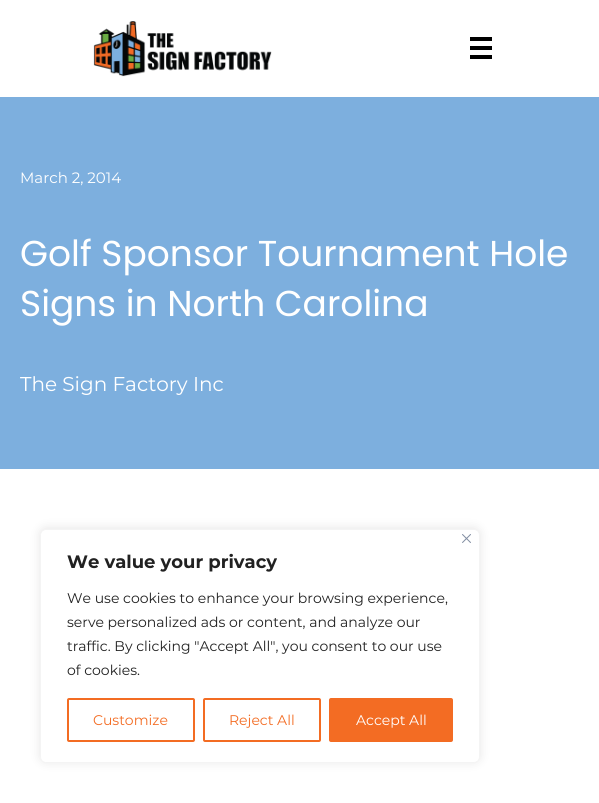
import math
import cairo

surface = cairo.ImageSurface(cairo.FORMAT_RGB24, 599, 803)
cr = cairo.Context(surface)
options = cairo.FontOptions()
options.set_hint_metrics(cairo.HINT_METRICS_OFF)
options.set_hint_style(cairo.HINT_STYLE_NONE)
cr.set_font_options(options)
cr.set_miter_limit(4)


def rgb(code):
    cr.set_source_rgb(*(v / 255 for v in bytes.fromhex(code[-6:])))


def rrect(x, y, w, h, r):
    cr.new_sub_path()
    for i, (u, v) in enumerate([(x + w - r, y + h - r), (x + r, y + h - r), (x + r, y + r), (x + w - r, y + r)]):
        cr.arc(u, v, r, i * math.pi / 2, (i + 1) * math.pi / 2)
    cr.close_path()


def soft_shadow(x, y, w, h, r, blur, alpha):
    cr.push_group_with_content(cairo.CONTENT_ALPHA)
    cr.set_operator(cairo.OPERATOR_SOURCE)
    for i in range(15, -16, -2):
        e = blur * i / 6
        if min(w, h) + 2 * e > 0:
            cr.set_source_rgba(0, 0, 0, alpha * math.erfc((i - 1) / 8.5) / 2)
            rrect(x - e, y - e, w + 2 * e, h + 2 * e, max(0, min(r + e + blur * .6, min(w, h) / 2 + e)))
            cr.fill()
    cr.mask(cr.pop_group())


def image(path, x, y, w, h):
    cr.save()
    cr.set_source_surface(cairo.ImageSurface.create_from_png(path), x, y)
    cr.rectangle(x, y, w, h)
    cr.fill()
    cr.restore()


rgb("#ffffff")
cr.paint()
image("img/1.png", 93, 21, 179, 56)
for x, y, w, h, color in [
    (470, 37, 22, 4, "#000000"),
    (470, 46, 22, 4, "#000000"),
    (470, 55, 22, 4, "#000000"),
    (0, 97, 599, 372, "#7dafde"),
]:
    rgb(color)
    cr.rectangle(x, y, w, h)
    cr.fill()
rgb("#acabab")
soft_shadow(40, 528, 440, 234, 6, 5, 0.3)
rgb("#ffffff")
rrect(40.5, 529.5, 439, 233, 5.5)
cr.fill_preserve()
rgb("#f4f4f4")
cr.set_line_width(1)
cr.stroke()
image("img/2.png", 462, 534, 9, 9)
rrect(68, 699, 126, 42, 1)
rgb("#f36c23")
cr.set_line_width(2)
cr.stroke()
rrect(204, 699, 116, 42, 1)
cr.stroke()
rrect(330, 699, 122, 42, 1)
cr.fill_preserve()
cr.stroke()
cr.select_font_face("Montserrat")
cr.set_font_size(15)
rgb("#ffffff")
cr.move_to(20, 183)
cr.show_text("March 2, 2014")
cr.select_font_face("Poppins")
cr.set_font_size(36)
cr.move_to(20, 266)
cr.show_text("Golf Sponsor Tournament Hole")
cr.move_to(20, 316)
cr.show_text("Signs in North Carolina")
cr.select_font_face("Montserrat")
cr.set_font_size(20)
cr.move_to(20, 391)
cr.show_text("The Sign Factory Inc")
cr.select_font_face("Montserrat", cairo.FONT_SLANT_NORMAL, cairo.FONT_WEIGHT_BOLD)
cr.set_font_size(18)
rgb("#212121")
cr.move_to(67, 568)
cr.show_text("We value your privacy")
cr.select_font_face("Montserrat")
cr.set_font_size(14)
for x, y, s in [
    (67, 603, "We use cookies to enhance your browsing experience,"),
    (67, 627, "serve personalized ads or content, and analyze our"),
    (67, 651, "traffic. By clicking \"Accept All\", you consent to our use"),
    (67, 675, "of cookies."),
]:
    cr.move_to(x, y)
    cr.show_text(s)
rgb("#f36c23")
cr.move_to(93, 725)
cr.show_text("Customize")
cr.move_to(229, 725)
cr.show_text("Reject All")
rgb("#ffffff")
cr.move_to(356, 725)
cr.show_text("Accept All")
surface.write_to_png("page.png")
